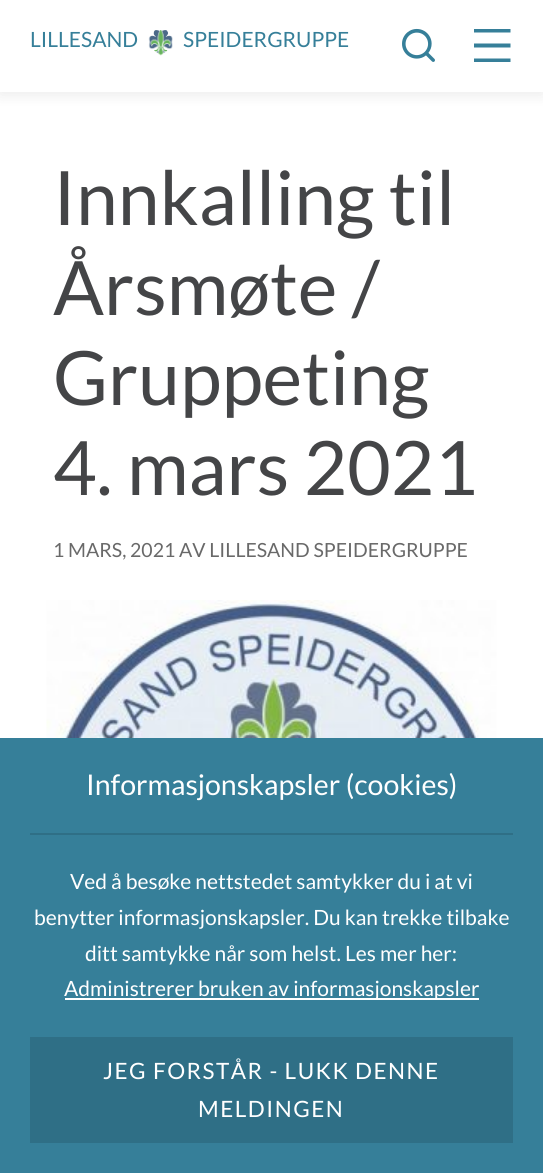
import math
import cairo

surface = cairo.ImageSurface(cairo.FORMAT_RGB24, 543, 1173)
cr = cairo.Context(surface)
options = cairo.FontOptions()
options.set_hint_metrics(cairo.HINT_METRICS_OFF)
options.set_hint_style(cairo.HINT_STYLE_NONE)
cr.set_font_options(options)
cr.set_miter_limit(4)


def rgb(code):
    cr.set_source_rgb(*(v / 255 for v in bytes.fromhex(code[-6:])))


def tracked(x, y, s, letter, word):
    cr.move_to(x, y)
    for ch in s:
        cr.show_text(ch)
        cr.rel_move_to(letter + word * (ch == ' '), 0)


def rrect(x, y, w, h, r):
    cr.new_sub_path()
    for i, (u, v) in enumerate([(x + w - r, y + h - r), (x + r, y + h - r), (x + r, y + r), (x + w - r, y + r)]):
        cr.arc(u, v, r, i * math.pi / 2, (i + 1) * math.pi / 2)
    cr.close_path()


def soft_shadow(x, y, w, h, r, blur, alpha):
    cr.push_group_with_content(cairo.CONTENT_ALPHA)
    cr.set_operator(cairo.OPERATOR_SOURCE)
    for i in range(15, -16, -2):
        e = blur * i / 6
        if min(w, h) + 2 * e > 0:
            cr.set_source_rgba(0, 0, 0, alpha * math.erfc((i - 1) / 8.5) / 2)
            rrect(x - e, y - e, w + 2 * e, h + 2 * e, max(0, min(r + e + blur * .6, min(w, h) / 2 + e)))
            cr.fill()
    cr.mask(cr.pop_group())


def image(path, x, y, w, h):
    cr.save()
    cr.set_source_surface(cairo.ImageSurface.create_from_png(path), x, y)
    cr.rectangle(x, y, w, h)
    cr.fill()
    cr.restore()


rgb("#ffffff")
cr.paint()
rgb("#000000")
soft_shadow(0, 3, 543, 92, 0, 7.5, 0.08)
rgb("#ffffff")
cr.rectangle(0, 0, 543, 92)
cr.fill()
image("img/1.png", 148, 30, 25, 26)
image("img/2.png", 402, 28, 33, 34)
rgb("#367f99")
cr.new_path()
cr.move_to(474, 29)
cr.line_to(510.5, 29)
cr.line_to(510.5, 32.5)
cr.line_to(474, 32.5)
cr.close_path()
cr.move_to(474, 43.5)
cr.line_to(510.5, 43.5)
cr.line_to(510.5, 47.5)
cr.line_to(474, 47.5)
cr.close_path()
cr.move_to(474, 58.5)
cr.line_to(510.5, 58.5)
cr.line_to(510.5, 62)
cr.line_to(474, 62)
cr.close_path()
cr.fill()
image("img/3.png", 46, 600, 451, 138)
for x, y, w, h, color in [
    (0, 738, 543, 435, "#367f99"),
    (30, 833, 483, 2, "#2f6f86"),
    (65, 998, 414, 2, "#ffffff"),
    (30, 1037, 483, 106, "#2f6f86"),
]:
    rgb(color)
    cr.rectangle(x, y, w, h)
    cr.fill()
cr.select_font_face("Lato")
cr.set_font_size(21)
rgb("#367f99")
cr.move_to(30, 47)
cr.show_text("LILLESAND")
cr.move_to(183, 47)
cr.show_text("SPEIDERGRUPPE")
cr.set_font_size(75)
rgb("#444547")
for x, y, s in [
    (53, 225, "Innkalling til"),
    (53, 315, "Årsmøte /"),
    (53, 405, "Gruppeting"),
    (53, 495, "4. mars 2021"),
]:
    cr.move_to(x, y)
    cr.show_text(s)
cr.set_font_size(19.5)
rgb("#696969")
cr.move_to(53, 557)
cr.show_text("1 MARS, 2021 AV LILLESAND SPEIDERGRUPPE")
cr.set_font_size(28.5)
rgb("#ffffff")
cr.move_to(86, 795)
cr.show_text("Informasjonskapsler (cookies)")
cr.set_font_size(21)
for x, y, s in [
    (70, 889, "Ved å besøke nettstedet samtykker du i at vi"),
    (34, 925, "benytter informasjonskapsler. Du kan trekke tilbake"),
    (85, 961, "ditt samtykke når som helst. Les mer her:"),
    (64, 996, "Administrerer bruken av informasjonskapsler"),
]:
    cr.move_to(x, y)
    cr.show_text(s)
cr.set_font_size(22.5)
tracked(103, 1079, "JEG FORSTÅR - LUKK DENNE", 1.5, 0)
tracked(198, 1117, "MELDINGEN", 1.5, 0)
surface.write_to_png("page.png")
